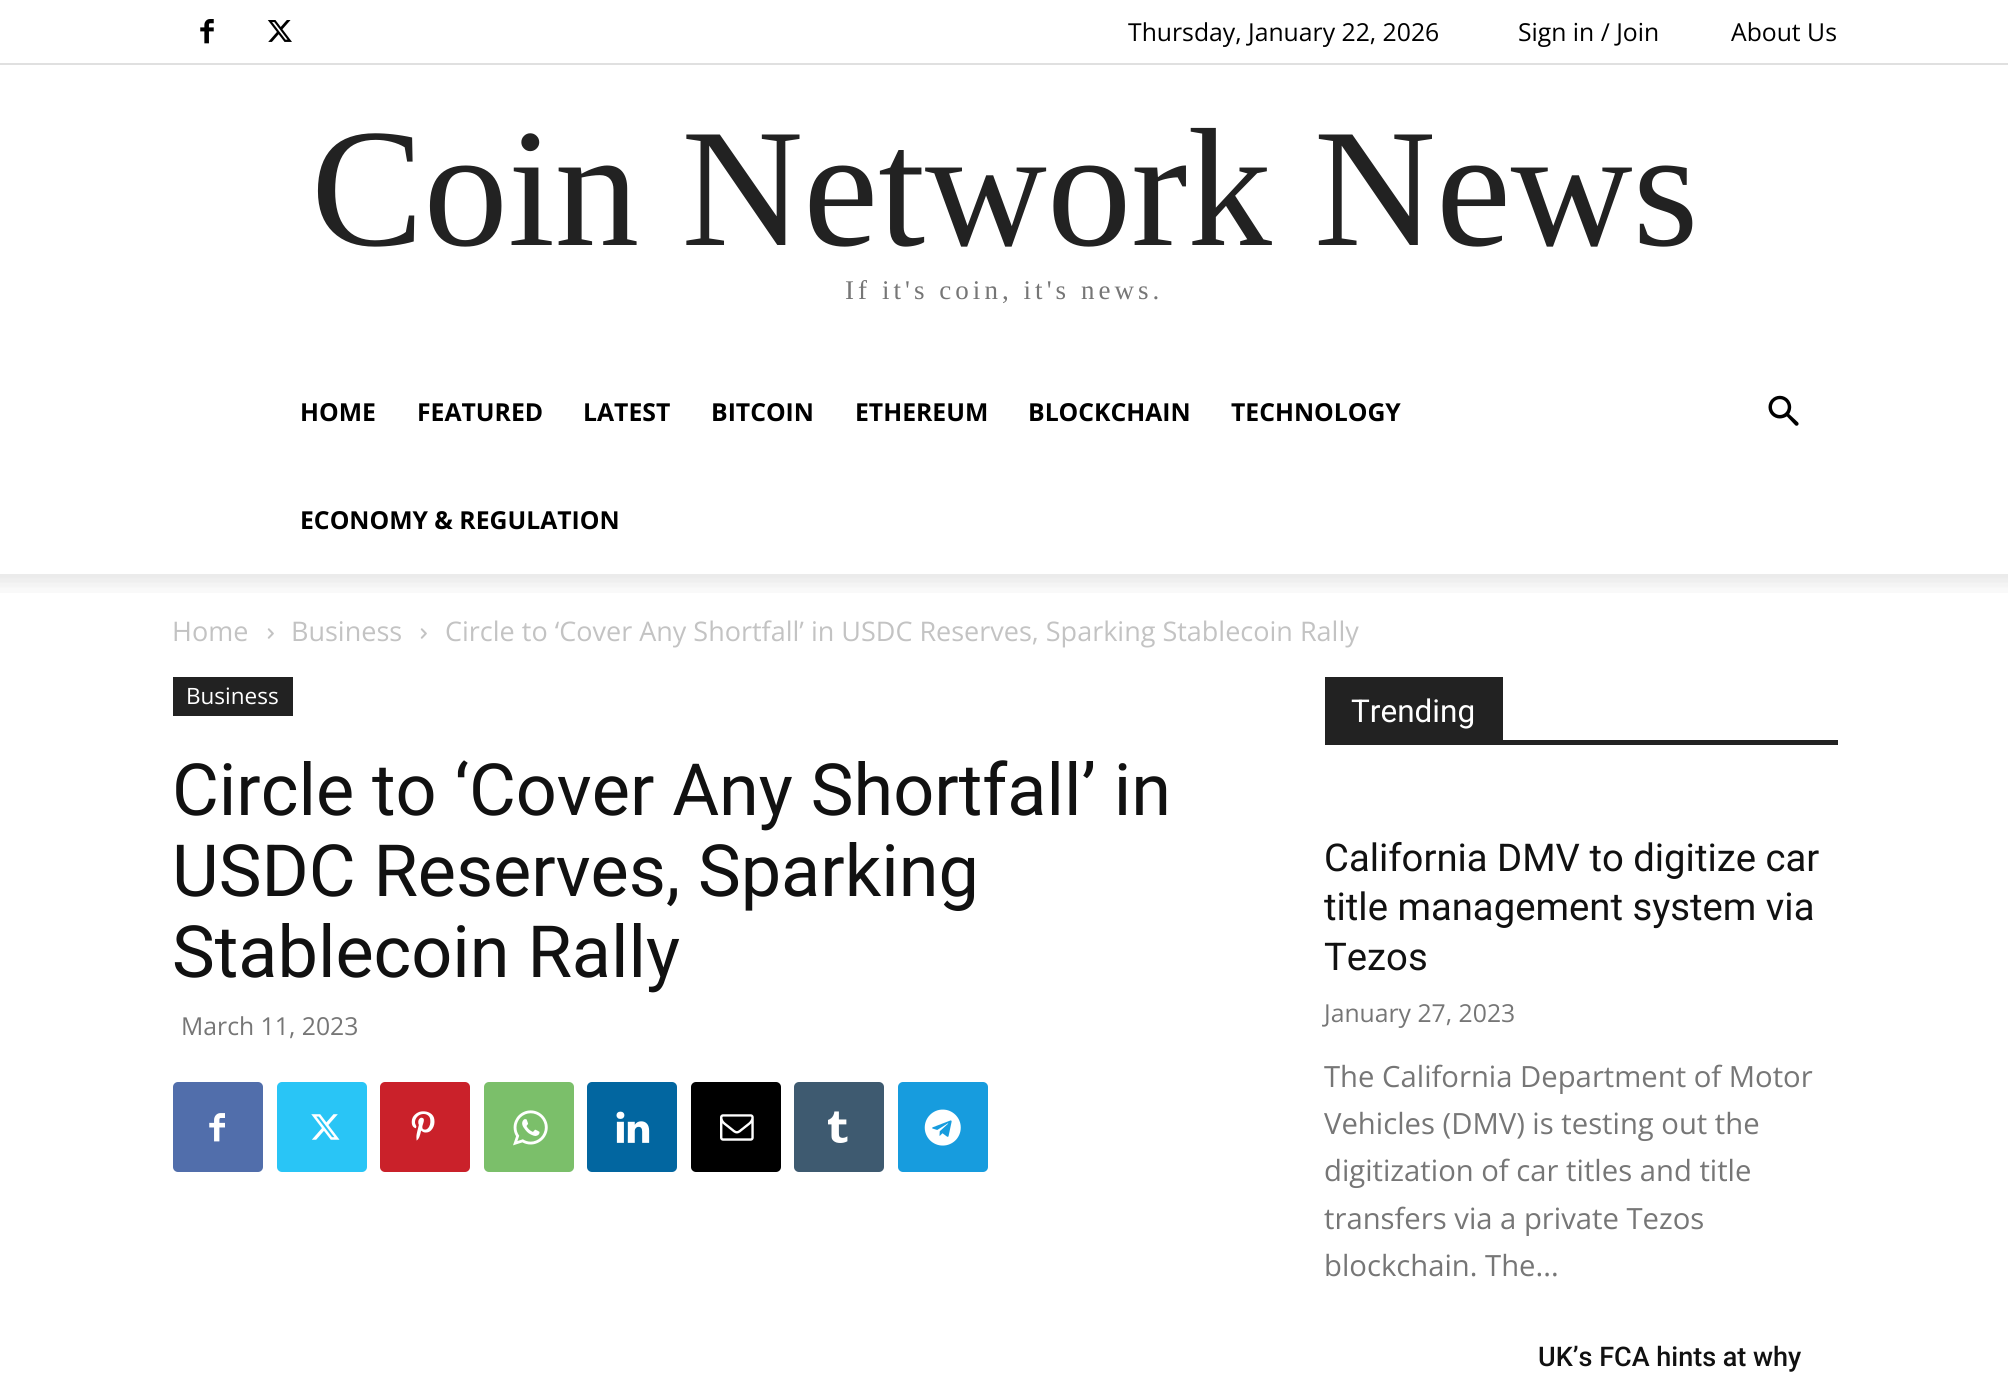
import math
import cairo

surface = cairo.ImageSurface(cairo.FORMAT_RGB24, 2008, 1395)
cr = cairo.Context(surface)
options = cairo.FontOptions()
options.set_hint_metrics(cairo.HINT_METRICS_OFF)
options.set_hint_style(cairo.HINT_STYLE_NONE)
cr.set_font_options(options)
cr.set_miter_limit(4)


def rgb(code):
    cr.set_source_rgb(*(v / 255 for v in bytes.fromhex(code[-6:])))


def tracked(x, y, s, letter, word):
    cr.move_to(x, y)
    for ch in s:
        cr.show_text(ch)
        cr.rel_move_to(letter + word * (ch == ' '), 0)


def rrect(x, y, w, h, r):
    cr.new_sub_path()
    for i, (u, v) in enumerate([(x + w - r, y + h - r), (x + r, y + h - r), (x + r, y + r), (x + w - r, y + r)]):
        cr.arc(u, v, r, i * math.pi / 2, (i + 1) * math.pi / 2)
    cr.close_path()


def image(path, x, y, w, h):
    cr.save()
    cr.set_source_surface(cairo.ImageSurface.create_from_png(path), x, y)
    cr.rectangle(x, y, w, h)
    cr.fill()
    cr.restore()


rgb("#ffffff")
cr.paint()
rgb("#e0e0e0")
cr.rectangle(0, 63, 2008, 2)
cr.fill()
image("img/1.png", 200, 19, 14, 25)
image("img/2.png", 267, 20, 25, 22)
image("img/3.png", 1768, 395, 31, 31)
image("img/4.png", 0, 574, 2008, 19)
image("img/5.png", 267, 628, 7, 11)
image("img/5.png", 420, 628, 7, 11)
rgb("#222222")
cr.rectangle(173, 677, 120, 39)
cr.fill()
rgb("#516eab")
rrect(173, 1082, 90, 90, 5)
cr.fill()
image("img/6.png", 209, 1113, 16, 29)
rgb("#29c5f6")
rrect(277, 1082, 90, 90, 5)
cr.fill()
image("img/7.png", 311, 1114, 29, 26)
rgb("#ca212a")
rrect(380, 1082, 90, 90, 5)
cr.fill()
image("img/8.png", 411, 1111, 24, 30)
rgb("#7bbf6a")
rrect(484, 1082, 90, 90, 5)
cr.fill()
image("img/9.png", 513, 1110, 35, 36)
rgb("#0266a0")
rrect(587, 1082, 90, 90, 5)
cr.fill()
image("img/10.png", 616, 1111, 34, 32)
rgb("#000000")
rrect(691, 1082, 90, 90, 5)
cr.fill()
image("img/11.png", 720, 1114, 34, 27)
rgb("#3e5a70")
rrect(794, 1082, 90, 90, 5)
cr.fill()
image("img/12.png", 828, 1111, 20, 32)
rgb("#179cde")
rrect(898, 1082, 90, 90, 5)
cr.fill()
image("img/13.png", 924, 1109, 37, 37)
rgb("#222222")
cr.rectangle(1325, 740, 513, 5)
cr.fill()
cr.rectangle(1325, 677, 178, 63)
cr.fill()
cr.select_font_face("Open Sans")
cr.set_font_size(24.75)
rgb("#000000")
for x, y, s in [
    (1128, 41, "Thursday, January 22, 2026"),
    (1518, 41, "Sign in / Join"),
    (1731, 41, "About Us"),
]:
    cr.move_to(x, y)
    cr.show_text(s)
cr.select_font_face("Liberation Serif")
cr.set_font_size(168.75)
rgb("#222222")
cr.move_to(311, 245)
cr.show_text("Coin Network News")
cr.set_font_size(27)
rgb("#767676")
tracked(845, 299, "If it's coin, it's news.", 4.05, 0)
cr.select_font_face("Open Sans", cairo.FONT_SLANT_NORMAL, cairo.FONT_WEIGHT_BOLD)
cr.set_font_size(24.75)
rgb("#000000")
for x, y, s in [
    (300, 421, "HOME"),
    (417, 421, "FEATURED"),
    (583, 421, "LATEST"),
    (711, 421, "BITCOIN"),
    (855, 421, "ETHEREUM"),
    (1028, 421, "BLOCKCHAIN"),
    (1231, 421, "TECHNOLOGY"),
    (300, 529, "ECONOMY & REGULATION"),
]:
    cr.move_to(x, y)
    cr.show_text(s)
cr.select_font_face("Open Sans")
cr.set_font_size(27)
rgb("#c3c3c3")
for x, y, s in [
    (172, 641, "Home"),
    (291, 641, "Business"),
    (445, 641, "Circle to ‘Cover Any Shortfall’ in USDC Reserves, Sparking Stablecoin Rally"),
]:
    cr.move_to(x, y)
    cr.show_text(s)
cr.set_font_size(22.5)
rgb("#ffffff")
cr.move_to(186, 704)
cr.show_text("Business")
cr.select_font_face("Roboto")
cr.set_font_size(72)
rgb("#111111")
for x, y, s in [
    (172, 815, "Circle to ‘Cover Any Shortfall’ in"),
    (172, 896, "USDC Reserves, Sparking"),
    (172, 977, "Stablecoin Rally"),
]:
    cr.move_to(x, y)
    cr.show_text(s)
cr.select_font_face("Open Sans")
cr.set_font_size(24.75)
rgb("#767676")
cr.move_to(181, 1035)
cr.show_text("March 11, 2023")
cr.select_font_face("Roboto")
cr.set_font_size(31.5)
rgb("#ffffff")
cr.move_to(1351, 722)
cr.show_text("Trending")
cr.set_font_size(38.25)
rgb("#111111")
for x, y, s in [
    (1324, 871, "California DMV to digitize car"),
    (1324, 920, "title management system via"),
    (1324, 970, "Tezos"),
]:
    cr.move_to(x, y)
    cr.show_text(s)
cr.select_font_face("Open Sans")
cr.set_font_size(24.75)
rgb("#767676")
cr.move_to(1324, 1022)
cr.show_text("January 27, 2023")
cr.set_font_size(29.25)
for x, y, s in [
    (1324, 1087, "The California Department of Motor"),
    (1324, 1134, "Vehicles (DMV) is testing out the"),
    (1324, 1181, "digitization of car titles and title"),
    (1324, 1229, "transfers via a private Tezos"),
    (1324, 1276, "blockchain. The..."),
]:
    cr.move_to(x, y)
    cr.show_text(s)
cr.select_font_face("Roboto Medium")
cr.set_font_size(27)
rgb("#111111")
cr.move_to(1538, 1366)
cr.show_text("UK’s FCA hints at why")
surface.write_to_png("page.png")
